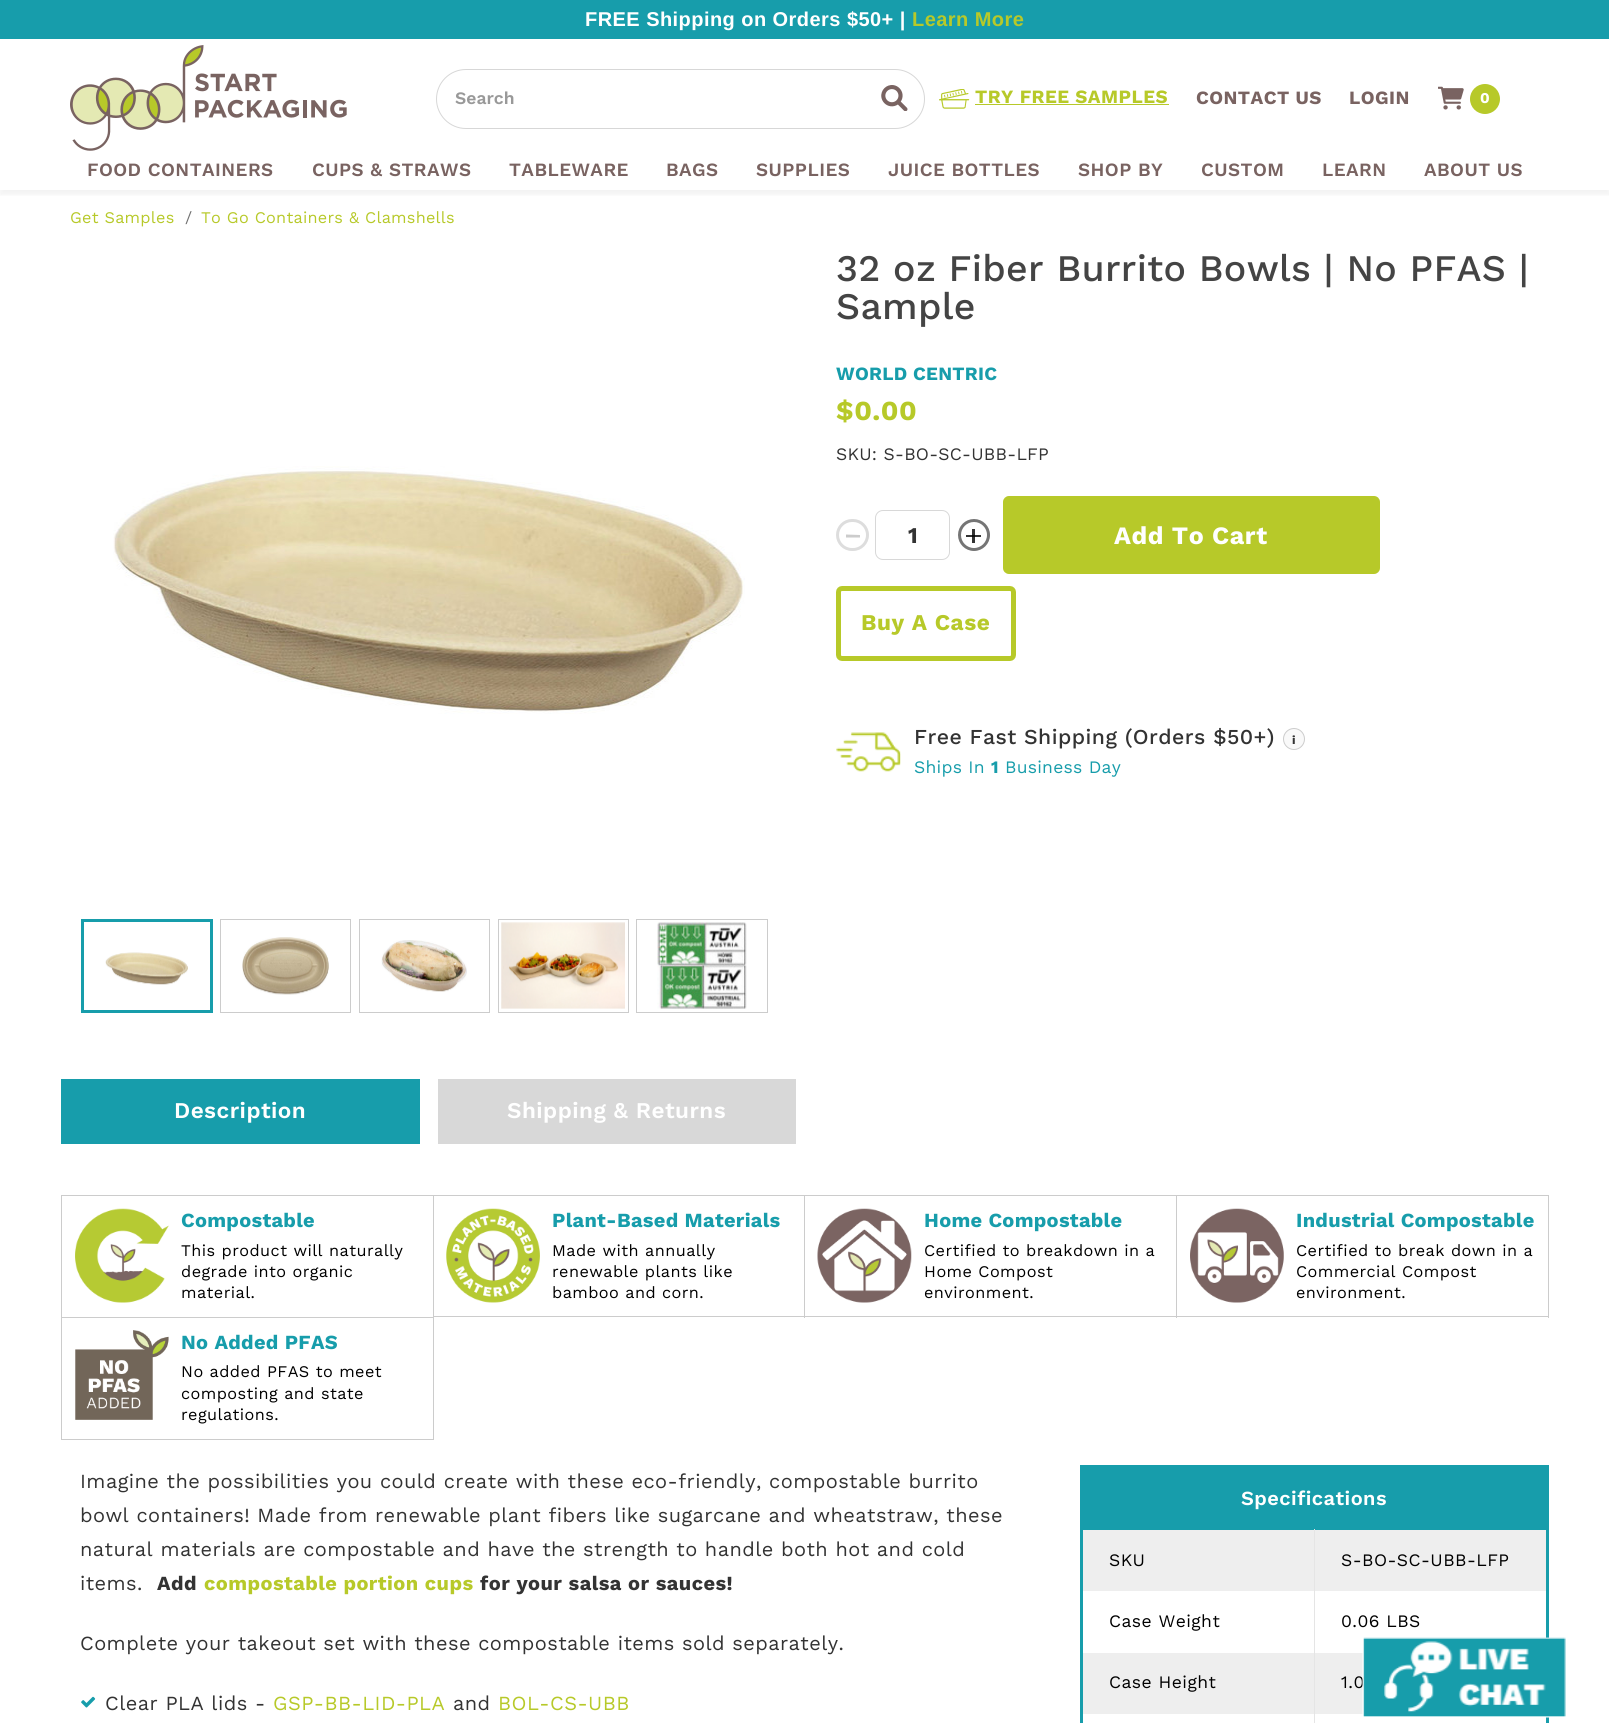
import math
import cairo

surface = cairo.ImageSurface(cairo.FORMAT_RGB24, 1609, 1723)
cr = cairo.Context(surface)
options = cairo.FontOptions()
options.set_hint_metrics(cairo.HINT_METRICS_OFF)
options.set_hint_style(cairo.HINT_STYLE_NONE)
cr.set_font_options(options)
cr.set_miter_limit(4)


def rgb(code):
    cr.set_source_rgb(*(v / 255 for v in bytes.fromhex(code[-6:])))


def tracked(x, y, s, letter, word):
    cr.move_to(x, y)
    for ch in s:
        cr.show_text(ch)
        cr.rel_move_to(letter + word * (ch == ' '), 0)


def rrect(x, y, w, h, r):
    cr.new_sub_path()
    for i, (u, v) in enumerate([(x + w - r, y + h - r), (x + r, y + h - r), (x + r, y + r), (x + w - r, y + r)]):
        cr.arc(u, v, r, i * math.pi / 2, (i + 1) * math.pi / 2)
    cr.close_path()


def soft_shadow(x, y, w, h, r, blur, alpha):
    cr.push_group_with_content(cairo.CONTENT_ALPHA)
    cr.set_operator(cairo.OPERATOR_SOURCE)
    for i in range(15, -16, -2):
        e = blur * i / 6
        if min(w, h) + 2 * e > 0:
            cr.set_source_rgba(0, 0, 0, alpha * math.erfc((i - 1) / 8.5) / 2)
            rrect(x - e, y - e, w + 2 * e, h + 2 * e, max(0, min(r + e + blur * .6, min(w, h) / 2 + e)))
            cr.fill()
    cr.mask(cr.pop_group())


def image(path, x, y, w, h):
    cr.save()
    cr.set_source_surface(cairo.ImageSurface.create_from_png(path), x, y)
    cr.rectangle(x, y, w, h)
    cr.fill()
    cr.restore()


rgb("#ffffff")
cr.paint()
rgb("#333333")
cr.rectangle(966, 535, 15, 2)
cr.fill()
cr.save()
cr.rectangle(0, 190, 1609, 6)
cr.clip()
rgb("#000000")
soft_shadow(0, 5, 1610, 190, 0, 2.5, 0.05)
cr.restore()
rgb("#179dab")
cr.rectangle(0, 0, 1609, 39)
cr.fill()
image("img/1.png", 70, 45, 277, 106)
rrect(436.5, 69.5, 488, 59, 29.5)
rgb("#d7d7d7")
cr.set_line_width(1)
cr.stroke()
image("img/2.png", 881, 85, 27, 26)
image("img/3.png", 939, 89, 31, 20)
rgb("#b7c929")
cr.rectangle(975, 104, 194, 1)
cr.fill()
image("img/4.png", 1438, 86, 26, 24)
cr.arc(1485, 99, 15, 0, 2 * math.pi)
cr.fill()
image("img/5.png", 113, 466, 632, 248)
cr.rectangle(82.5, 920.5, 129, 91)
rgb("#179dab")
cr.set_line_width(3)
cr.stroke()
image("img/6.png", 105, 952, 83, 33)
cr.rectangle(220.5, 919.5, 130, 93)
rgb("#cccccc")
cr.set_line_width(1)
cr.stroke()
image("img/7.png", 242, 937, 87, 58)
cr.rectangle(359.5, 919.5, 130, 93)
cr.stroke()
image("img/8.png", 381, 940, 86, 52)
cr.rectangle(498.5, 919.5, 130, 93)
cr.stroke()
image("img/9.png", 501, 922, 124, 87)
cr.rectangle(636.5, 919.5, 131, 93)
cr.stroke()
image("img/10.png", 657, 922, 90, 87)
rrect(837.5, 520.5, 30, 29, 14.5)
rgb("#dddddd")
cr.set_line_width(3)
cr.stroke()
rgb("#cccccc")
cr.set_fill_rule(cairo.FILL_RULE_EVEN_ODD)
cr.new_path()
cr.move_to(846, 534.5)
cr.line_to(860, 535)
cr.line_to(860, 537.5)
cr.line_to(846, 537.5)
cr.close_path()
cr.fill()
rrect(875.5, 510.5, 74, 49, 7.5)
rgb("#d8d8d8")
cr.set_line_width(1)
cr.stroke()
cr.arc(974, 535, 14.5, 0, 2 * math.pi)
rgb("#757575")
cr.set_line_width(3)
cr.stroke()
rgb("#333333")
cr.rectangle(972, 529, 3, 14)
cr.fill()
rgb("#0a0a0a")
cr.rectangle(972, 535, 3, 2)
cr.fill()
rgb("#b7c929")
rrect(1005, 498, 373, 74, 4)
cr.fill_preserve()
cr.set_line_width(4)
cr.stroke()
rrect(838.5, 588.5, 175, 70, 3.5)
cr.set_line_width(5)
cr.stroke()
image("img/11.png", 836, 732, 65, 40)
rgb("#f9f9f9")
cr.arc(1294, 739, 10.5, 0, 2 * math.pi)
cr.fill_preserve()
rgb("#cccccc")
cr.set_line_width(1)
cr.stroke()
rgb("#179dab")
cr.rectangle(61, 1079, 359, 65)
cr.fill()
rgb("#d8d8d8")
cr.rectangle(438, 1079, 358, 65)
cr.fill()
cr.rectangle(61.5, 1195.5, 372, 122)
rgb("#cccccc")
cr.stroke()
image("img/12.png", 75, 1208, 94, 95)
for x, y, w, h, color in [
    (434, 1195, 1115, 1, "#cccccc"),
    (804, 1195, 1, 123, "#cccccc"),
    (434, 1316, 371, 1, "#cccccc"),
]:
    rgb(color)
    cr.rectangle(x, y, w, h)
    cr.fill()
image("img/13.png", 446, 1208, 94, 95)
cr.rectangle(1176, 1195, 1, 123)
cr.fill()
cr.rectangle(805, 1316, 373, 1)
cr.fill()
image("img/14.png", 817, 1208, 95, 95)
cr.rectangle(1548, 1195, 1, 123)
cr.fill()
cr.rectangle(1178, 1316, 371, 1)
cr.fill()
image("img/15.png", 1190, 1208, 94, 95)
for x, y, w, h, color in [
    (433, 1318, 1, 122, "#cccccc"),
    (61, 1439, 373, 1, "#cccccc"),
    (61, 1318, 1, 122, "#cccccc"),
]:
    rgb(color)
    cr.rectangle(x, y, w, h)
    cr.fill()
image("img/16.png", 75, 1330, 94, 90)
image("img/17.png", 81, 1696, 15, 12)
for x, y, w, h, color in [
    (1080, 1465, 469, 258, "#179dab"),
    (1083, 1591, 463, 132, "#ffffff"),
    (1083, 1530, 463, 61, "#eeeeee"),
    (1083, 1653, 280, 61, "#eeeeee"),
    (1314, 1529, 1, 194, "#e5e5e5"),
]:
    rgb(color)
    cr.rectangle(x, y, w, h)
    cr.fill()
cr.select_font_face("Liberation Sans", cairo.FONT_SLANT_NORMAL, cairo.FONT_WEIGHT_BOLD)
cr.set_font_size(20)
rgb("#ffffff")
tracked(585, 26, "FREE Shipping on Orders $50+ |", 0.45, 0)
rgb("#b7c929")
tracked(912, 26, "Learn More", 0.45, 0)
cr.select_font_face("Work Sans SemiBold")
cr.set_font_size(17.5)
rgb("#999999")
cr.move_to(455, 104)
cr.show_text("Search")
cr.select_font_face("Work Sans", cairo.FONT_SLANT_NORMAL, cairo.FONT_WEIGHT_BOLD)
cr.set_font_size(18.75)
rgb("#b7c929")
tracked(975, 103, "TRY FREE SAMPLES", 0.45, 0)
rgb("#796361")
tracked(1196, 104, "CONTACT US", 0.45, 0)
tracked(1349, 104, "LOGIN", 0.45, 0)
cr.set_font_size(15)
rgb("#ffffff")
tracked(1480, 103, "0", 0.45, 0)
cr.select_font_face("Work Sans SemiBold")
cr.set_font_size(18.75)
rgb("#796361")
for x, y, s in [
    (87, 176, "FOOD CONTAINERS"),
    (312, 176, "CUPS & STRAWS"),
    (509, 176, "TABLEWARE"),
    (666, 176, "BAGS"),
    (756, 176, "SUPPLIES"),
    (888, 176, "JUICE BOTTLES"),
    (1078, 176, "SHOP BY"),
    (1201, 176, "CUSTOM"),
    (1322, 176, "LEARN"),
    (1424, 176, "ABOUT US"),
]:
    tracked(x, y, s, 0.45, 0)
cr.select_font_face("Work Sans")
cr.set_font_size(16.25)
rgb("#b7c929")
tracked(70, 223, "Get Samples", 0.25, 0)
rgb("#717171")
tracked(185, 223, "/", 0.25, 0)
rgb("#b7c929")
tracked(201, 223, "To Go Containers & Clamshells", 0.25, 0)
cr.select_font_face("Work Sans Medium")
cr.set_font_size(37.5)
rgb("#444444")
tracked(836, 281, "32 oz Fiber Burrito Bowls | No PFAS |", 0.3, 0)
tracked(836, 319, "Sample", 0.3, 0)
cr.select_font_face("Work Sans", cairo.FONT_SLANT_NORMAL, cairo.FONT_WEIGHT_BOLD)
cr.set_font_size(18.75)
rgb("#179dab")
tracked(836, 380, "WORLD CENTRIC", 0.25, 0)
cr.set_font_size(27.5)
rgb("#b7c929")
tracked(836, 420, "$0.00", 0.5, 0)
cr.select_font_face("Work Sans")
cr.set_font_size(17.5)
rgb("#333333")
tracked(836, 460, "SKU: S-BO-SC-UBB-LFP", 0.25, 0)
cr.select_font_face("Work Sans", cairo.FONT_SLANT_NORMAL, cairo.FONT_WEIGHT_BOLD)
cr.set_font_size(22.5)
cr.move_to(908, 543)
cr.show_text("1")
cr.set_font_size(25)
rgb("#ffffff")
tracked(1114, 544, "Add To Cart", 0.6, 0)
cr.set_font_size(22.5)
rgb("#b7c929")
tracked(861, 630, "Buy A Case", 0.6, 0)
cr.select_font_face("Work Sans Medium")
cr.set_font_size(21.25)
rgb("#333333")
tracked(914, 744, "Free Fast Shipping (Orders $50+)", 0.45, 0)
cr.select_font_face("Work Sans", cairo.FONT_SLANT_NORMAL, cairo.FONT_WEIGHT_BOLD)
cr.set_font_size(12)
tracked(1292, 744, "i", 0.45, 0)
cr.select_font_face("Work Sans")
cr.set_font_size(17.5)
rgb("#179dab")
tracked(914, 773, "Ships In", 0.25, 0)
cr.select_font_face("Work Sans", cairo.FONT_SLANT_NORMAL, cairo.FONT_WEIGHT_BOLD)
tracked(991, 773, "1", 0.25, 0)
cr.select_font_face("Work Sans")
tracked(1005, 773, "Business Day", 0.25, 0)
cr.select_font_face("Work Sans SemiBold")
cr.set_font_size(22.5)
rgb("#ffffff")
tracked(174, 1118, "Description", 0.45, 0)
tracked(507, 1118, "Shipping & Returns", 0.45, 0)
cr.select_font_face("Work Sans", cairo.FONT_SLANT_NORMAL, cairo.FONT_WEIGHT_BOLD)
cr.set_font_size(20)
rgb("#179dab")
tracked(181, 1227, "Compostable", 0.3, 0)
cr.select_font_face("Work Sans")
cr.set_font_size(16.25)
rgb("#000000")
for x, y, s in [
    (181, 1256, "This product will naturally"),
    (181, 1277, "degrade into organic"),
    (181, 1298, "material."),
]:
    tracked(x, y, s, 0.45, 0)
cr.select_font_face("Work Sans", cairo.FONT_SLANT_NORMAL, cairo.FONT_WEIGHT_BOLD)
cr.set_font_size(20)
rgb("#179dab")
tracked(552, 1227, "Plant-Based Materials", 0.3, 0)
cr.select_font_face("Work Sans")
cr.set_font_size(16.25)
rgb("#000000")
for x, y, s in [
    (552, 1256, "Made with annually"),
    (552, 1277, "renewable plants like"),
    (552, 1298, "bamboo and corn."),
]:
    tracked(x, y, s, 0.45, 0)
cr.select_font_face("Work Sans", cairo.FONT_SLANT_NORMAL, cairo.FONT_WEIGHT_BOLD)
cr.set_font_size(20)
rgb("#179dab")
tracked(924, 1227, "Home Compostable", 0.3, 0)
cr.select_font_face("Work Sans")
cr.set_font_size(16.25)
rgb("#000000")
for x, y, s in [
    (924, 1256, "Certified to breakdown in a"),
    (924, 1277, "Home Compost"),
    (924, 1298, "environment."),
]:
    tracked(x, y, s, 0.45, 0)
cr.select_font_face("Work Sans", cairo.FONT_SLANT_NORMAL, cairo.FONT_WEIGHT_BOLD)
cr.set_font_size(20)
rgb("#179dab")
tracked(1296, 1227, "Industrial Compostable", 0.3, 0)
cr.select_font_face("Work Sans")
cr.set_font_size(16.25)
rgb("#000000")
for x, y, s in [
    (1296, 1256, "Certified to break down in a"),
    (1296, 1277, "Commercial Compost"),
    (1296, 1298, "environment."),
]:
    tracked(x, y, s, 0.45, 0)
cr.select_font_face("Work Sans", cairo.FONT_SLANT_NORMAL, cairo.FONT_WEIGHT_BOLD)
cr.set_font_size(20)
rgb("#179dab")
tracked(181, 1349, "No Added PFAS", 0.3, 0)
cr.select_font_face("Work Sans")
cr.set_font_size(16.25)
rgb("#000000")
for x, y, s in [
    (181, 1377, "No added PFAS to meet"),
    (181, 1399, "composting and state"),
    (181, 1420, "regulations."),
]:
    tracked(x, y, s, 0.45, 0)
cr.set_font_size(20)
rgb("#333333")
for x, y, s in [
    (80, 1488, "Imagine the possibilities you could create with these eco-friendly, compostable burrito"),
    (80, 1522, "bowl containers! Made from renewable plant fibers like sugarcane and wheatstraw, these"),
    (80, 1556, "natural materials are compostable and have the strength to handle both hot and cold"),
    (80, 1590, "items."),
]:
    tracked(x, y, s, 0.45, 0)
cr.select_font_face("Work Sans", cairo.FONT_SLANT_NORMAL, cairo.FONT_WEIGHT_BOLD)
tracked(157, 1590, "Add", 0.45, 0)
rgb("#b7c929")
tracked(204, 1590, "compostable portion cups", 0.45, 0)
rgb("#333333")
tracked(480, 1590, "for your salsa or sauces!", 0.45, 0)
cr.select_font_face("Work Sans")
tracked(80, 1650, "Complete your takeout set with these compostable items sold separately.", 0.45, 0)
tracked(105, 1710, "Clear PLA lids -", 0.45, 0)
rgb("#b7c929")
tracked(273, 1710, "GSP-BB-LID-PLA", 0.45, 0)
rgb("#333333")
tracked(453, 1710, "and", 0.45, 0)
rgb("#b7c929")
tracked(498, 1710, "BOL-CS-UBB", 0.45, 0)
cr.select_font_face("Work Sans SemiBold")
rgb("#ffffff")
tracked(1241, 1505, "Specifications", 0.45, 0)
cr.select_font_face("Work Sans")
cr.set_font_size(17.5)
rgb("#000000")
for x, y, s in [
    (1109, 1566, "SKU"),
    (1341, 1566, "S-BO-SC-UBB-LFP"),
    (1109, 1627, "Case Weight"),
    (1341, 1627, "0.06 LBS"),
    (1109, 1688, "Case Height"),
    (1341, 1688, "1.0"),
]:
    tracked(x, y, s, 0.45, 0)
image("img/18.png", 1362, 1637, 204, 81)
surface.write_to_png("page.png")
